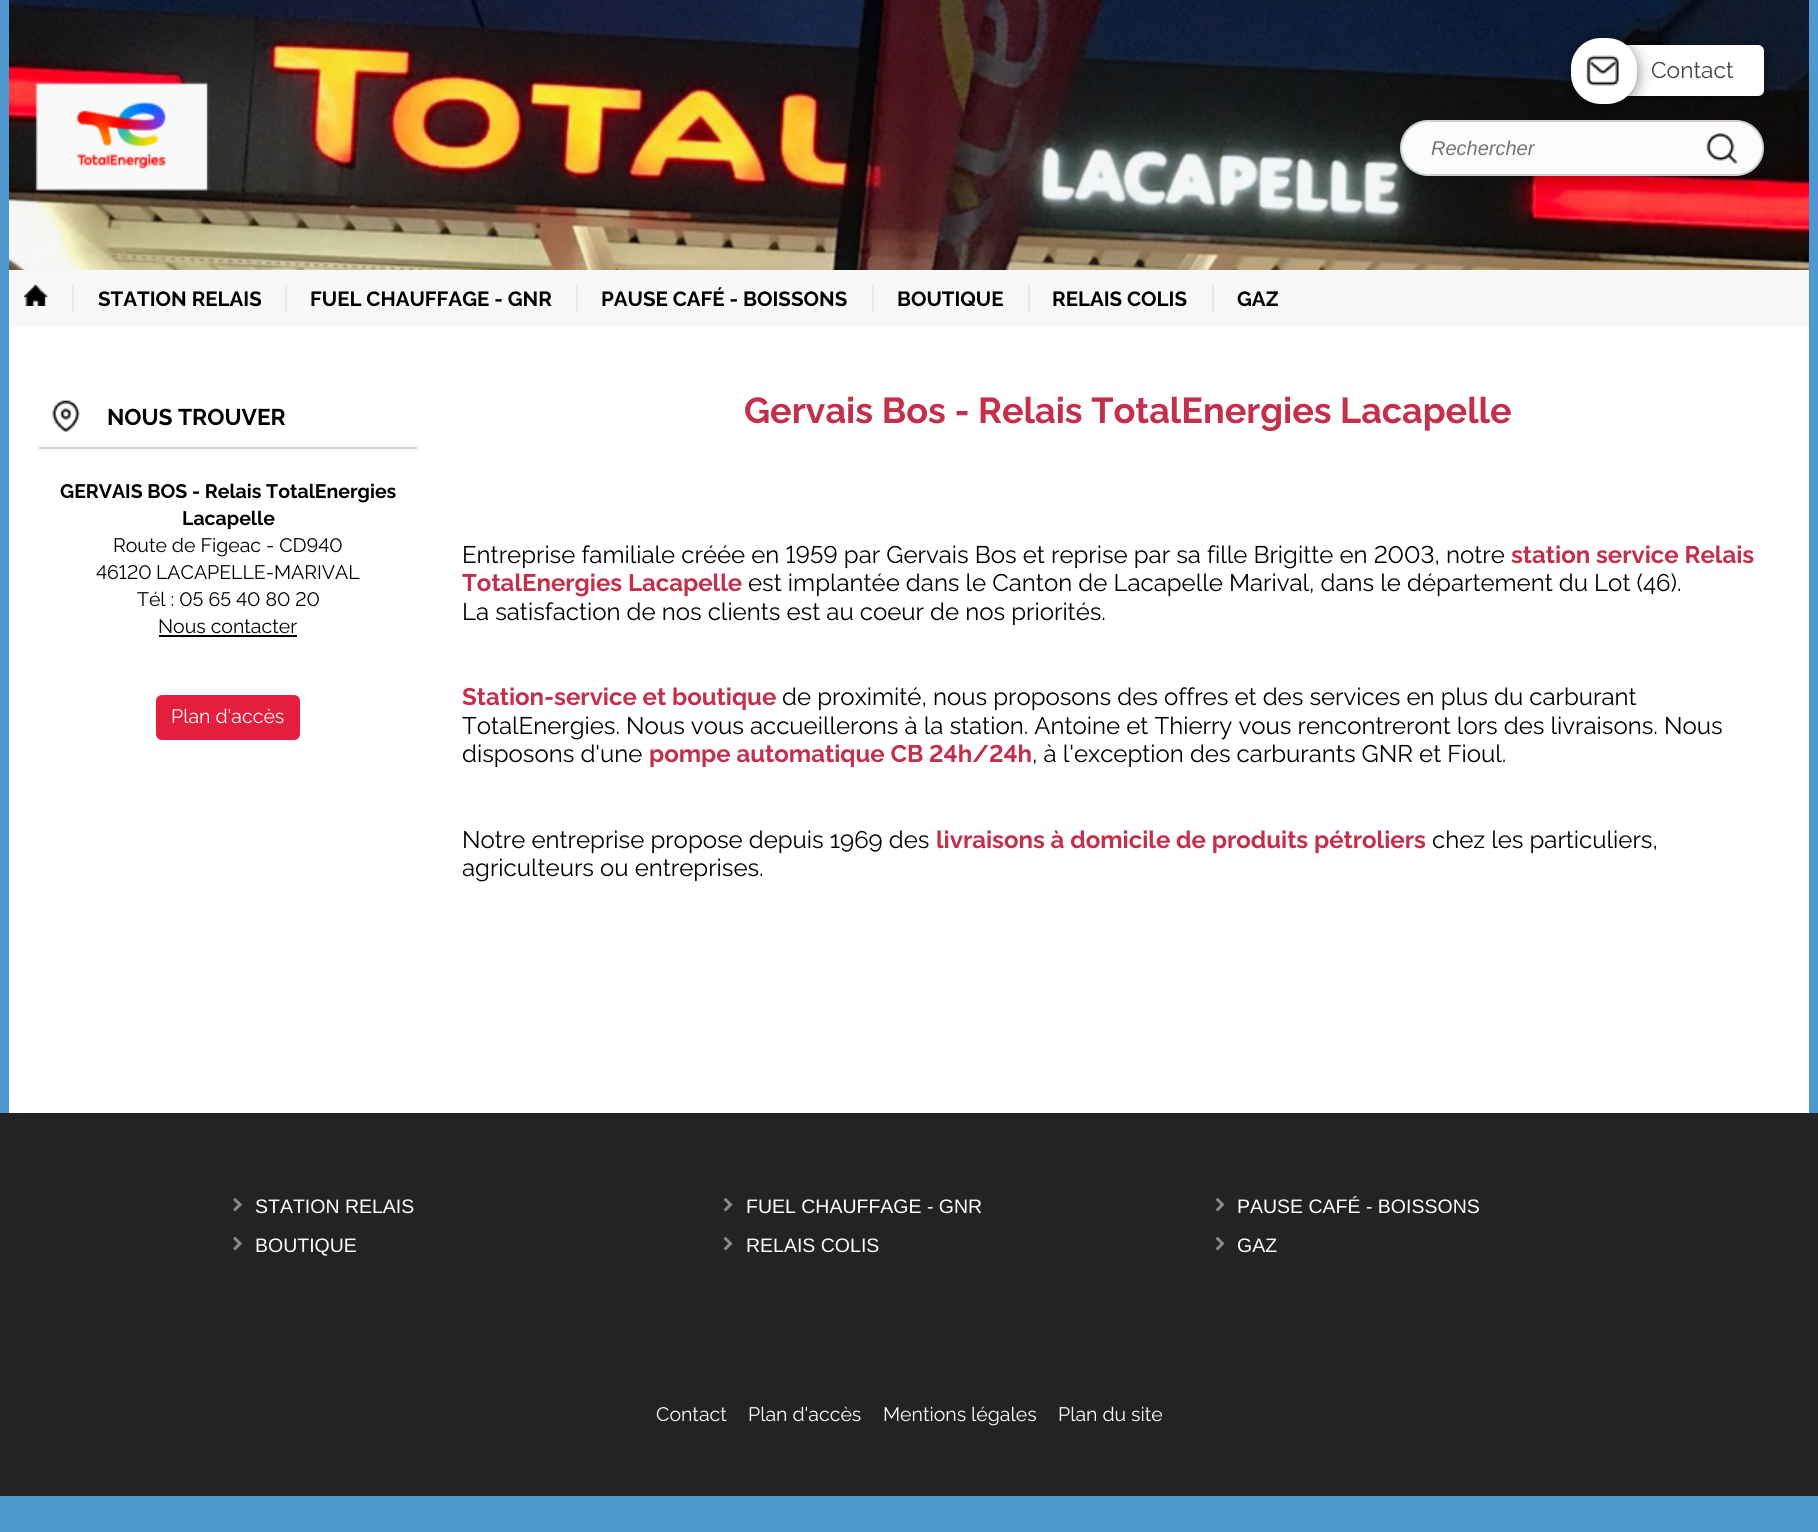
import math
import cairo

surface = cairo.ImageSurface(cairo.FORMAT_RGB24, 1818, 1532)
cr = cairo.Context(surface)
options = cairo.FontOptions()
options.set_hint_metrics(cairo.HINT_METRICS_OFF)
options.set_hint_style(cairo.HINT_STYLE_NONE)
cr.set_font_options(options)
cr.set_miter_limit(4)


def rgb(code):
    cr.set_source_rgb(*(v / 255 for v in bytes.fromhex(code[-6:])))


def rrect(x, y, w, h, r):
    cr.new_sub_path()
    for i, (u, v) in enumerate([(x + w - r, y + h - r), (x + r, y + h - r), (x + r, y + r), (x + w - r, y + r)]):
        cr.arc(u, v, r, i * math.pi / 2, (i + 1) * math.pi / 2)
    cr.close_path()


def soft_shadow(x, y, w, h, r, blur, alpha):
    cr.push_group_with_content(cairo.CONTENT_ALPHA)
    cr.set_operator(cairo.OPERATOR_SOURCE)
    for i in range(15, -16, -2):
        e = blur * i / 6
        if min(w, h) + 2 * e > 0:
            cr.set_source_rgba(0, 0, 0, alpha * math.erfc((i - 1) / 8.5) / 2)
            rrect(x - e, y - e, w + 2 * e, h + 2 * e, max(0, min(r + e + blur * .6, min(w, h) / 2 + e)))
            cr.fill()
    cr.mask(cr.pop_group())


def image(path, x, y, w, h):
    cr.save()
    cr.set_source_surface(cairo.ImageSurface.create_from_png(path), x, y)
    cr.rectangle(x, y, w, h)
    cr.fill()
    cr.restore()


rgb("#4f98cf")
cr.paint()
image("img/1.png", 9, 0, 1800, 270)
rgb("#000000")
soft_shadow(1607, 47, 157, 51, 6, 5, 0.5)
rgb("#ffffff")
rrect(1607, 45, 157, 51, 6)
cr.fill()
rgb("#000000")
soft_shadow(1571, 41, 66, 66, 30, 7.5, 0.5)
rgb("#ffffff")
rrect(1571, 38, 66, 66, 30)
cr.fill()
image("img/2.png", 1586, 55, 33, 31)
rgb("#000000")
soft_shadow(1407, 143, 350, 40, 20, 7.5, 0.2)
rgb("#fcfcfc")
rrect(1401, 121, 362, 54, 27)
cr.fill_preserve()
rgb("#cad2d3")
cr.stroke()
image("img/3.png", 1706, 133, 32, 31)
rgb("#ffffff")
cr.rectangle(9, 327, 1800, 786)
cr.fill()
rgb("#f8f8f8")
cr.rectangle(9, 270, 1800, 57)
cr.fill()
image("img/4.png", 24, 285, 24, 21)
for x, y, w, h, color in [
    (72, 285, 2, 27, "#e8e8e8"),
    (285, 285, 2, 27, "#e8e8e8"),
    (576, 285, 2, 27, "#e8e8e8"),
    (872, 285, 2, 27, "#e8e8e8"),
    (1028, 285, 2, 27, "#e8e8e8"),
    (1212, 285, 2, 27, "#e8e8e8"),
    (39, 447, 378, 2, "#cad2d3"),
]:
    rgb(color)
    cr.rectangle(x, y, w, h)
    cr.fill()
image("img/5.png", 52, 400, 28, 32)
rgb("#000000")
cr.rectangle(159, 635, 138, 2)
cr.fill()
rgb("#e51e3d")
rrect(156, 695, 144, 45, 6)
cr.fill()
rgb("#232323")
cr.rectangle(0, 1113, 1818, 383)
cr.fill()
image("img/6.png", 233, 1197, 9, 15)
image("img/7.png", 723, 1197, 10, 15)
image("img/7.png", 1215, 1197, 10, 15)
image("img/6.png", 233, 1236, 9, 15)
image("img/7.png", 723, 1236, 10, 15)
image("img/7.png", 1215, 1236, 10, 15)
cr.select_font_face("Raleway")
cr.set_font_size(22.75)
rgb("#454545")
cr.move_to(1651, 78)
cr.show_text("Contact")
cr.select_font_face("Liberation Sans", cairo.FONT_SLANT_ITALIC)
cr.set_font_size(20)
rgb("#757575")
cr.move_to(1431, 155)
cr.show_text("Rechercher")
cr.select_font_face("Raleway", cairo.FONT_SLANT_NORMAL, cairo.FONT_WEIGHT_BOLD)
cr.set_font_size(20.5)
rgb("#000000")
for x, y, s in [
    (98, 306, "STATION RELAIS"),
    (310, 306, "FUEL CHAUFFAGE - GNR"),
    (601, 306, "PAUSE CAFÉ - BOISSONS"),
    (897, 306, "BOUTIQUE"),
    (1052, 306, "RELAIS COLIS"),
    (1237, 306, "GAZ"),
]:
    cr.move_to(x, y)
    cr.show_text(s)
cr.set_font_size(22.75)
cr.move_to(107, 425)
cr.show_text("NOUS TROUVER")
cr.set_font_size(19.5)
cr.move_to(60, 498)
cr.show_text("GERVAIS BOS - Relais TotalEnergies")
cr.move_to(182, 525)
cr.show_text("Lacapelle")
cr.select_font_face("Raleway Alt")
cr.move_to(113, 552)
cr.show_text("Route de Figeac - CD940")
cr.move_to(96, 579)
cr.show_text("46120")
cr.select_font_face("Raleway")
cr.move_to(156, 579)
cr.show_text("LACAPELLE-MARIVAL")
cr.select_font_face("Raleway Alt")
cr.move_to(137, 606)
cr.show_text("Tél : 05 65 40 80 20")
cr.select_font_face("Raleway")
cr.move_to(158, 633)
cr.show_text("Nous contacter")
rgb("#ffffff")
cr.move_to(171, 723)
cr.show_text("Plan d'accès")
cr.select_font_face("Raleway", cairo.FONT_SLANT_NORMAL, cairo.FONT_WEIGHT_BOLD)
cr.set_font_size(36)
rgb("#c4304b")
cr.move_to(744, 423)
cr.show_text("Gervais Bos - Relais TotalEnergies Lacapelle")
cr.select_font_face("Raleway Alt")
cr.set_font_size(24)
rgb("#000000")
cr.move_to(462, 563)
cr.show_text("Entreprise familiale créée en 1959 par Gervais Bos et reprise par sa fille Brigitte en 2003, notre")
cr.select_font_face("Raleway", cairo.FONT_SLANT_NORMAL, cairo.FONT_WEIGHT_BOLD)
rgb("#c4304b")
cr.move_to(1511, 563)
cr.show_text("station service Relais")
cr.move_to(462, 591)
cr.show_text("TotalEnergies Lacapelle")
cr.select_font_face("Raleway")
rgb("#000000")
cr.move_to(748, 591)
cr.show_text("est implantée dans le Canton de Lacapelle Marival, dans le département du Lot (46).")
cr.move_to(462, 620)
cr.show_text("La satisfaction de nos clients est au coeur de nos priorités.")
cr.select_font_face("Raleway", cairo.FONT_SLANT_NORMAL, cairo.FONT_WEIGHT_BOLD)
rgb("#c4304b")
cr.move_to(462, 705)
cr.show_text("Station-service et boutique")
cr.select_font_face("Raleway")
rgb("#000000")
for x, y, s in [
    (782, 705, "de proximité, nous proposons des offres et des services en plus du carburant"),
    (462, 734, "TotalEnergies. Nous vous accueillerons à la station. Antoine et Thierry vous rencontreront lors des livraisons. Nous"),
    (462, 762, "disposons d'une"),
]:
    cr.move_to(x, y)
    cr.show_text(s)
cr.select_font_face("Raleway Alt", cairo.FONT_SLANT_NORMAL, cairo.FONT_WEIGHT_BOLD)
rgb("#c4304b")
cr.move_to(649, 762)
cr.show_text("pompe automatique CB 24h/24h")
cr.select_font_face("Raleway")
rgb("#000000")
cr.move_to(1032, 762)
cr.show_text(", à l'exception des carburants GNR et Fioul.")
cr.move_to(462, 848)
cr.show_text("Notre entreprise propose depuis 1969 des")
cr.select_font_face("Raleway", cairo.FONT_SLANT_NORMAL, cairo.FONT_WEIGHT_BOLD)
rgb("#c4304b")
cr.move_to(936, 848)
cr.show_text("livraisons à domicile de produits pétroliers")
cr.select_font_face("Raleway")
rgb("#000000")
cr.move_to(1432, 848)
cr.show_text("chez les particuliers,")
cr.move_to(462, 876)
cr.show_text("agriculteurs ou entreprises.")
cr.select_font_face("Liberation Sans")
cr.set_font_size(19.5)
rgb("#ffffff")
for x, y, s in [
    (255, 1213, "STATION RELAIS"),
    (746, 1213, "FUEL CHAUFFAGE - GNR"),
    (1237, 1213, "PAUSE CAFÉ - BOISSONS"),
    (255, 1252, "BOUTIQUE"),
    (746, 1252, "RELAIS COLIS"),
    (1237, 1252, "GAZ"),
]:
    cr.move_to(x, y)
    cr.show_text(s)
cr.select_font_face("Raleway")
for x, y, s in [
    (656, 1421, "Contact"),
    (748, 1421, "Plan d'accès"),
    (883, 1421, "Mentions légales"),
    (1058, 1421, "Plan du site"),
]:
    cr.move_to(x, y)
    cr.show_text(s)
surface.write_to_png("page.png")
